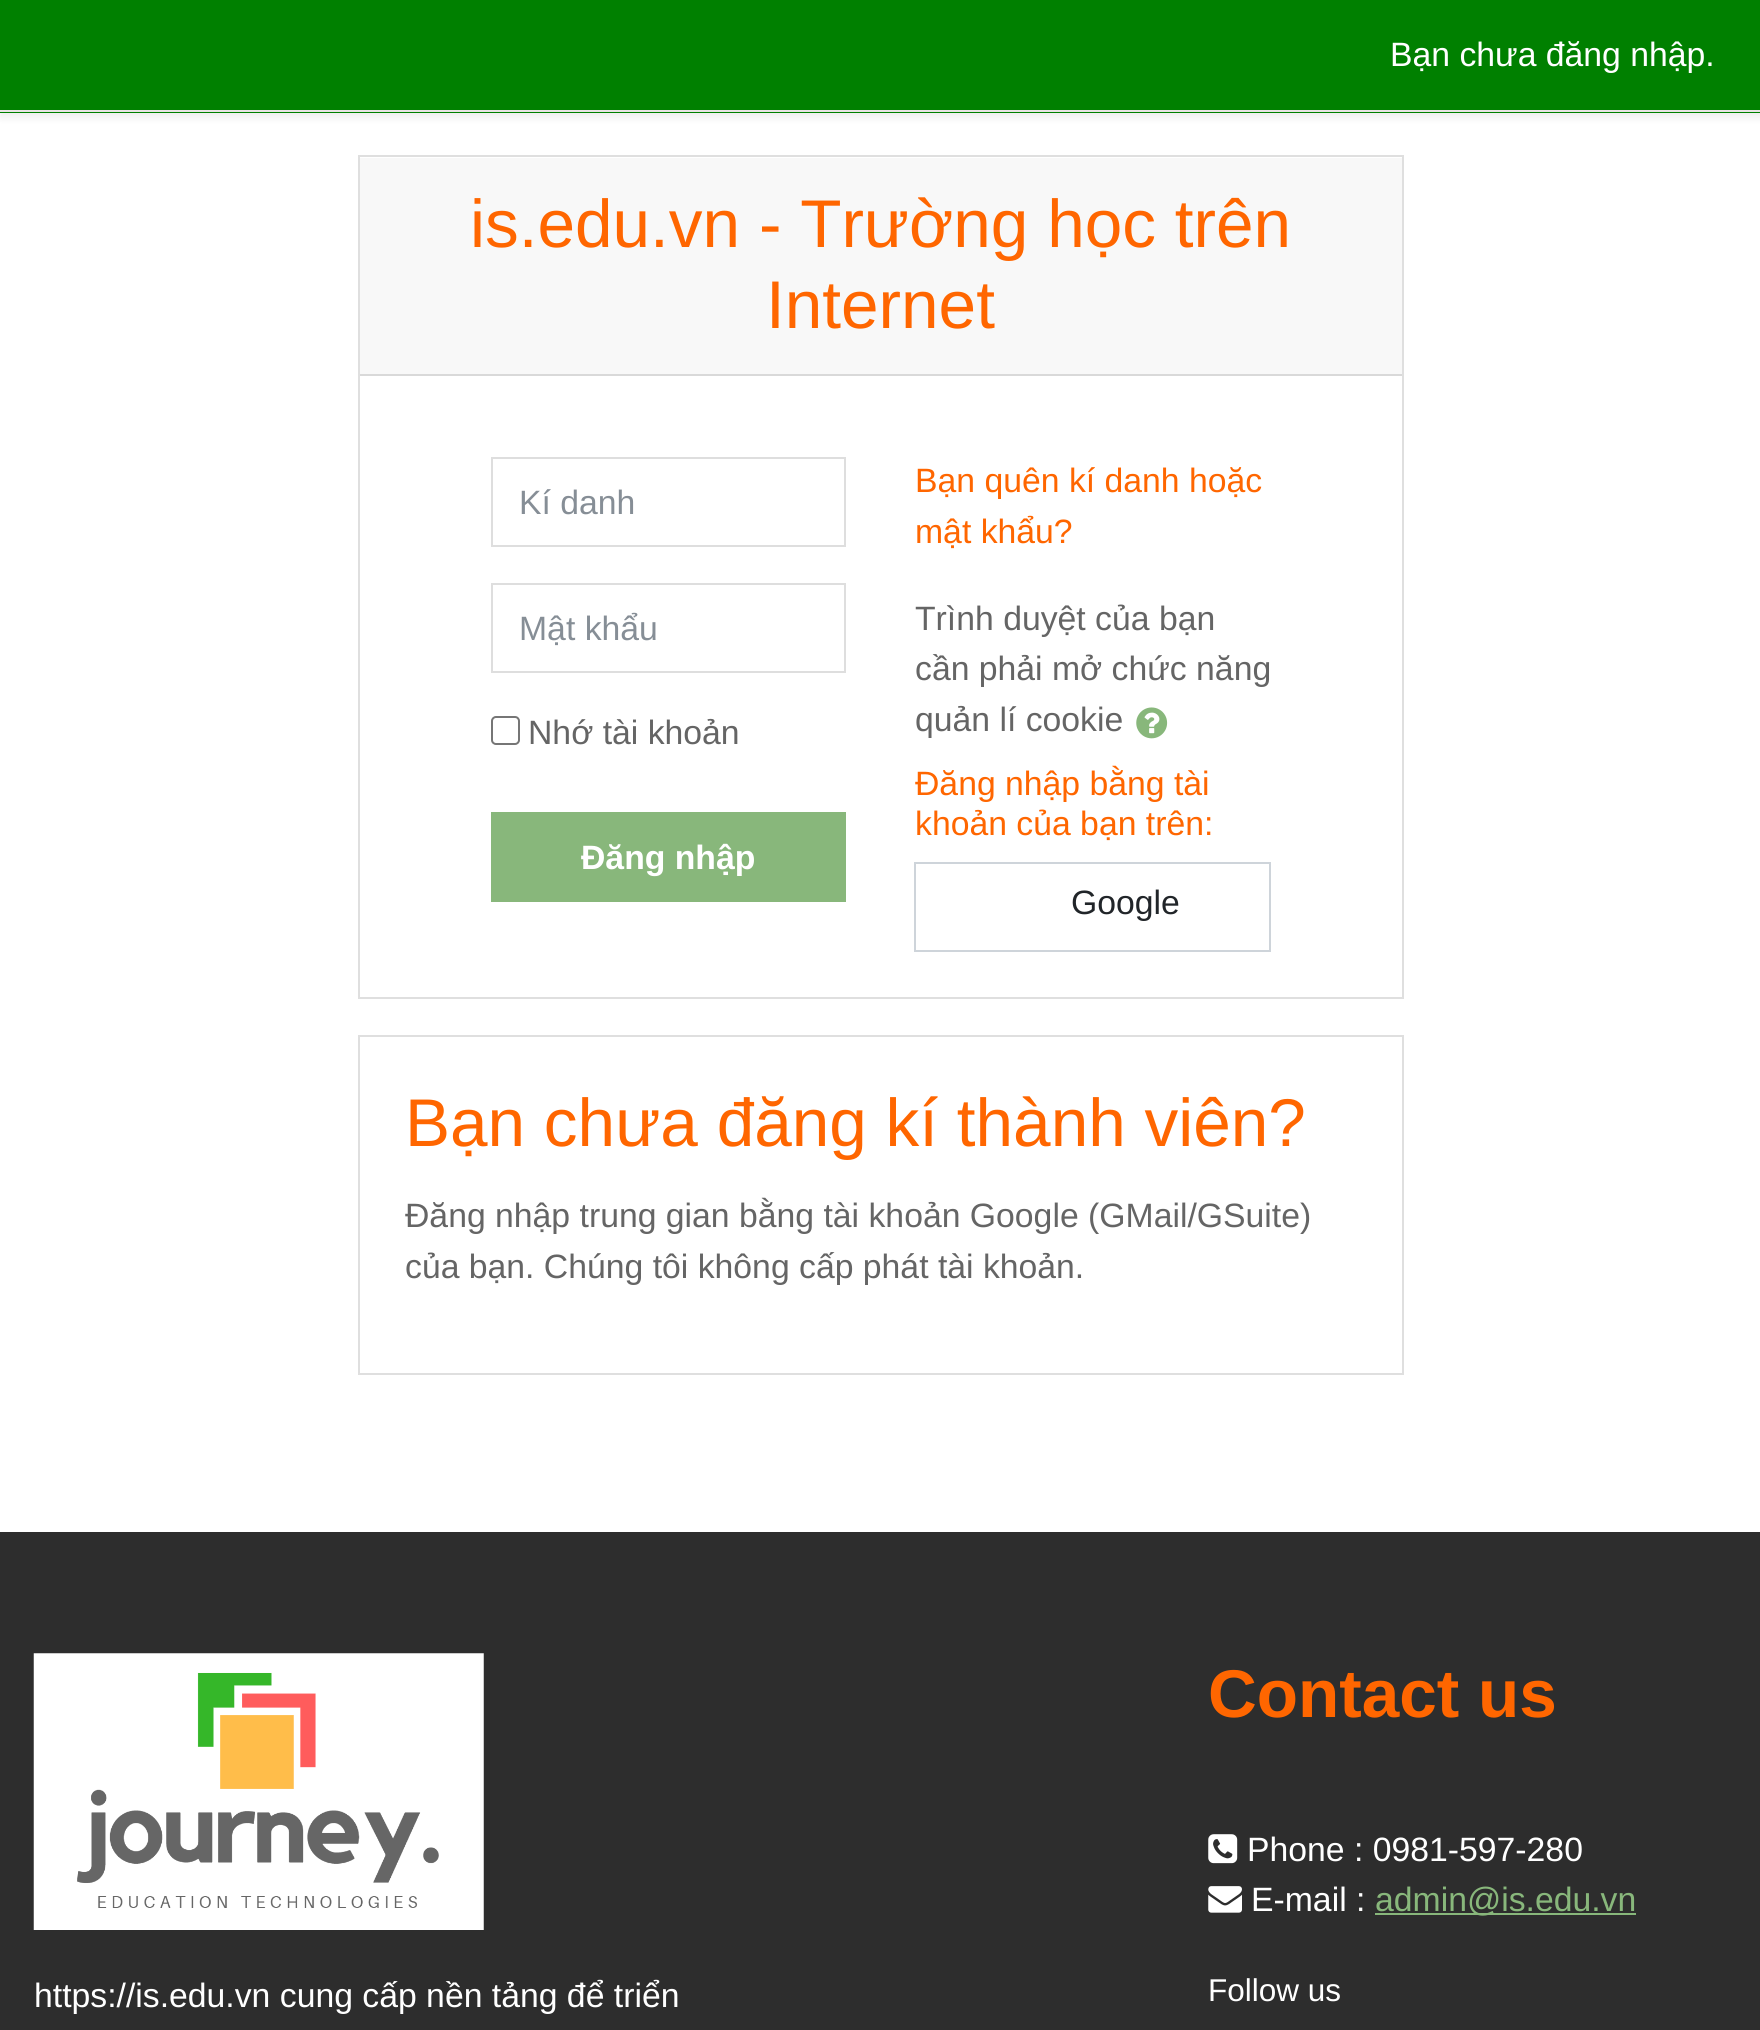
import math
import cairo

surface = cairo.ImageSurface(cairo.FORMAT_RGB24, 1760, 2030)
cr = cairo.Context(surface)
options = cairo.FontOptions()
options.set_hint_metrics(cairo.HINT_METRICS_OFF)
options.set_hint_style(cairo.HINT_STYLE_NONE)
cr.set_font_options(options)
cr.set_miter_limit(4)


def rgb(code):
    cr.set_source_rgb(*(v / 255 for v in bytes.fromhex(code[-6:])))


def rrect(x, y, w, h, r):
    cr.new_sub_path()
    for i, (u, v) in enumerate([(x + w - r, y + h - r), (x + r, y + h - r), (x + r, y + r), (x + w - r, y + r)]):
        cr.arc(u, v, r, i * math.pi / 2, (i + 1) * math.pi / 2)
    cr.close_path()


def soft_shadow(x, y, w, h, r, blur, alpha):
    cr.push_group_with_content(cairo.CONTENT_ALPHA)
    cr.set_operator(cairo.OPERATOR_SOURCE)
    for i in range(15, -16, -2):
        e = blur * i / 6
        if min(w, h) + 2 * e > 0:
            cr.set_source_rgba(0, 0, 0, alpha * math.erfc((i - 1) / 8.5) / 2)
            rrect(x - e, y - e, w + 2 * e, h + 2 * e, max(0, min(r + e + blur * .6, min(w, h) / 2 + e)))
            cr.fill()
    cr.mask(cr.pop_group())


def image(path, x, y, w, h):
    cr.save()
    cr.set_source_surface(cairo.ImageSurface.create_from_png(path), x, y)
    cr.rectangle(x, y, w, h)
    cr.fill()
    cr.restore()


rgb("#ffffff")
cr.paint()
rgb("#000000")
soft_shadow(0, 5, 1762, 112, 0, 4.5, 0.08)
rgb("#008000")
cr.rectangle(0, 0, 1760, 113)
cr.fill()
rgb("#e8e3e3")
cr.rectangle(0, 110, 1760, 2)
cr.fill()
cr.rectangle(359, 156, 1044, 842)
rgb("#dfdfdf")
cr.stroke()
rgb("#f8f8f8")
cr.rectangle(360, 158, 1042, 216)
cr.fill()
rgb("#d9d9d9")
cr.rectangle(360, 374, 1042, 2)
cr.fill()
cr.rectangle(492, 458, 353, 88)
rgb("#dedede")
cr.stroke()
cr.rectangle(492, 584, 353, 88)
cr.stroke()
rrect(492, 717, 27, 27, 4)
rgb("#767676")
cr.stroke()
rgb("#88b77b")
cr.rectangle(491, 812, 355, 90)
cr.fill()
image("img/1.png", 1136, 707, 32, 32)
cr.rectangle(915, 863, 355, 88)
rgb("#ced4da")
cr.stroke()
cr.rectangle(359, 1036, 1044, 338)
rgb("#dfdfdf")
cr.stroke()
rgb("#2d2d2d")
cr.rectangle(0, 1532, 1760, 498)
cr.fill()
image("img/2.png", 33, 1653, 451, 277)
image("img/3.png", 1208, 1834, 30, 30)
image("img/4.png", 1208, 1886, 34, 27)
rgb("#88b77b")
cr.rectangle(1375, 1913, 261, 2)
cr.fill()
cr.select_font_face("Liberation Sans")
cr.set_font_size(33.75)
rgb("#ffffff")
cr.move_to(1390, 66)
cr.show_text("Bạn chưa đăng nhập.")
cr.set_font_size(67.5)
rgb("#ff6600")
cr.move_to(470, 247)
cr.show_text("is.edu.vn - Trường học trên")
cr.move_to(766, 328)
cr.show_text("Internet")
cr.set_font_size(33.75)
rgb("#868e96")
cr.move_to(519, 514)
cr.show_text("Kí danh")
cr.move_to(519, 640)
cr.show_text("Mật khẩu")
rgb("#656565")
cr.move_to(528, 744)
cr.show_text("Nhớ tài khoản")
cr.select_font_face("Liberation Sans", cairo.FONT_SLANT_NORMAL, cairo.FONT_WEIGHT_BOLD)
rgb("#ffffff")
cr.move_to(581, 869)
cr.show_text("Đăng nhập")
cr.select_font_face("Liberation Sans")
rgb("#ff6600")
cr.move_to(915, 492)
cr.show_text("Bạn quên kí danh hoặc")
cr.move_to(915, 543)
cr.show_text("mật khẩu?")
rgb("#656565")
for x, y, s in [
    (915, 630, "Trình duyệt của bạn"),
    (915, 680, "cần phải mở chức năng"),
    (915, 731, "quản lí cookie"),
]:
    cr.move_to(x, y)
    cr.show_text(s)
rgb("#ff6600")
cr.move_to(915, 795)
cr.show_text("Đăng nhập bằng tài")
cr.move_to(915, 835)
cr.show_text("khoản của bạn trên:")
rgb("#212529")
cr.move_to(1071, 914)
cr.show_text("Google")
cr.set_font_size(67.5)
rgb("#ff6600")
cr.move_to(405, 1146)
cr.show_text("Bạn chưa đăng kí thành viên?")
cr.set_font_size(33.75)
rgb("#656565")
cr.move_to(405, 1227)
cr.show_text("Đăng nhập trung gian bằng tài khoản Google (GMail/GSuite)")
cr.move_to(405, 1278)
cr.show_text("của bạn. Chúng tôi không cấp phát tài khoản.")
rgb("#ffffff")
cr.move_to(34, 2007)
cr.show_text("https://is.edu.vn cung cấp nền tảng để triển")
cr.select_font_face("Liberation Sans", cairo.FONT_SLANT_NORMAL, cairo.FONT_WEIGHT_BOLD)
cr.set_font_size(67.5)
rgb("#ff6600")
cr.move_to(1208, 1717)
cr.show_text("Contact us")
cr.select_font_face("Liberation Sans")
cr.set_font_size(33.75)
rgb("#ffffff")
cr.move_to(1247, 1861)
cr.show_text("Phone : 0981-597-280")
cr.move_to(1251, 1911)
cr.show_text("E-mail :")
rgb("#88b77b")
cr.move_to(1375, 1911)
cr.show_text("admin@is.edu.vn")
cr.set_font_size(31.5)
rgb("#ffffff")
cr.move_to(1208, 2001)
cr.show_text("Follow us")
surface.write_to_png("page.png")
